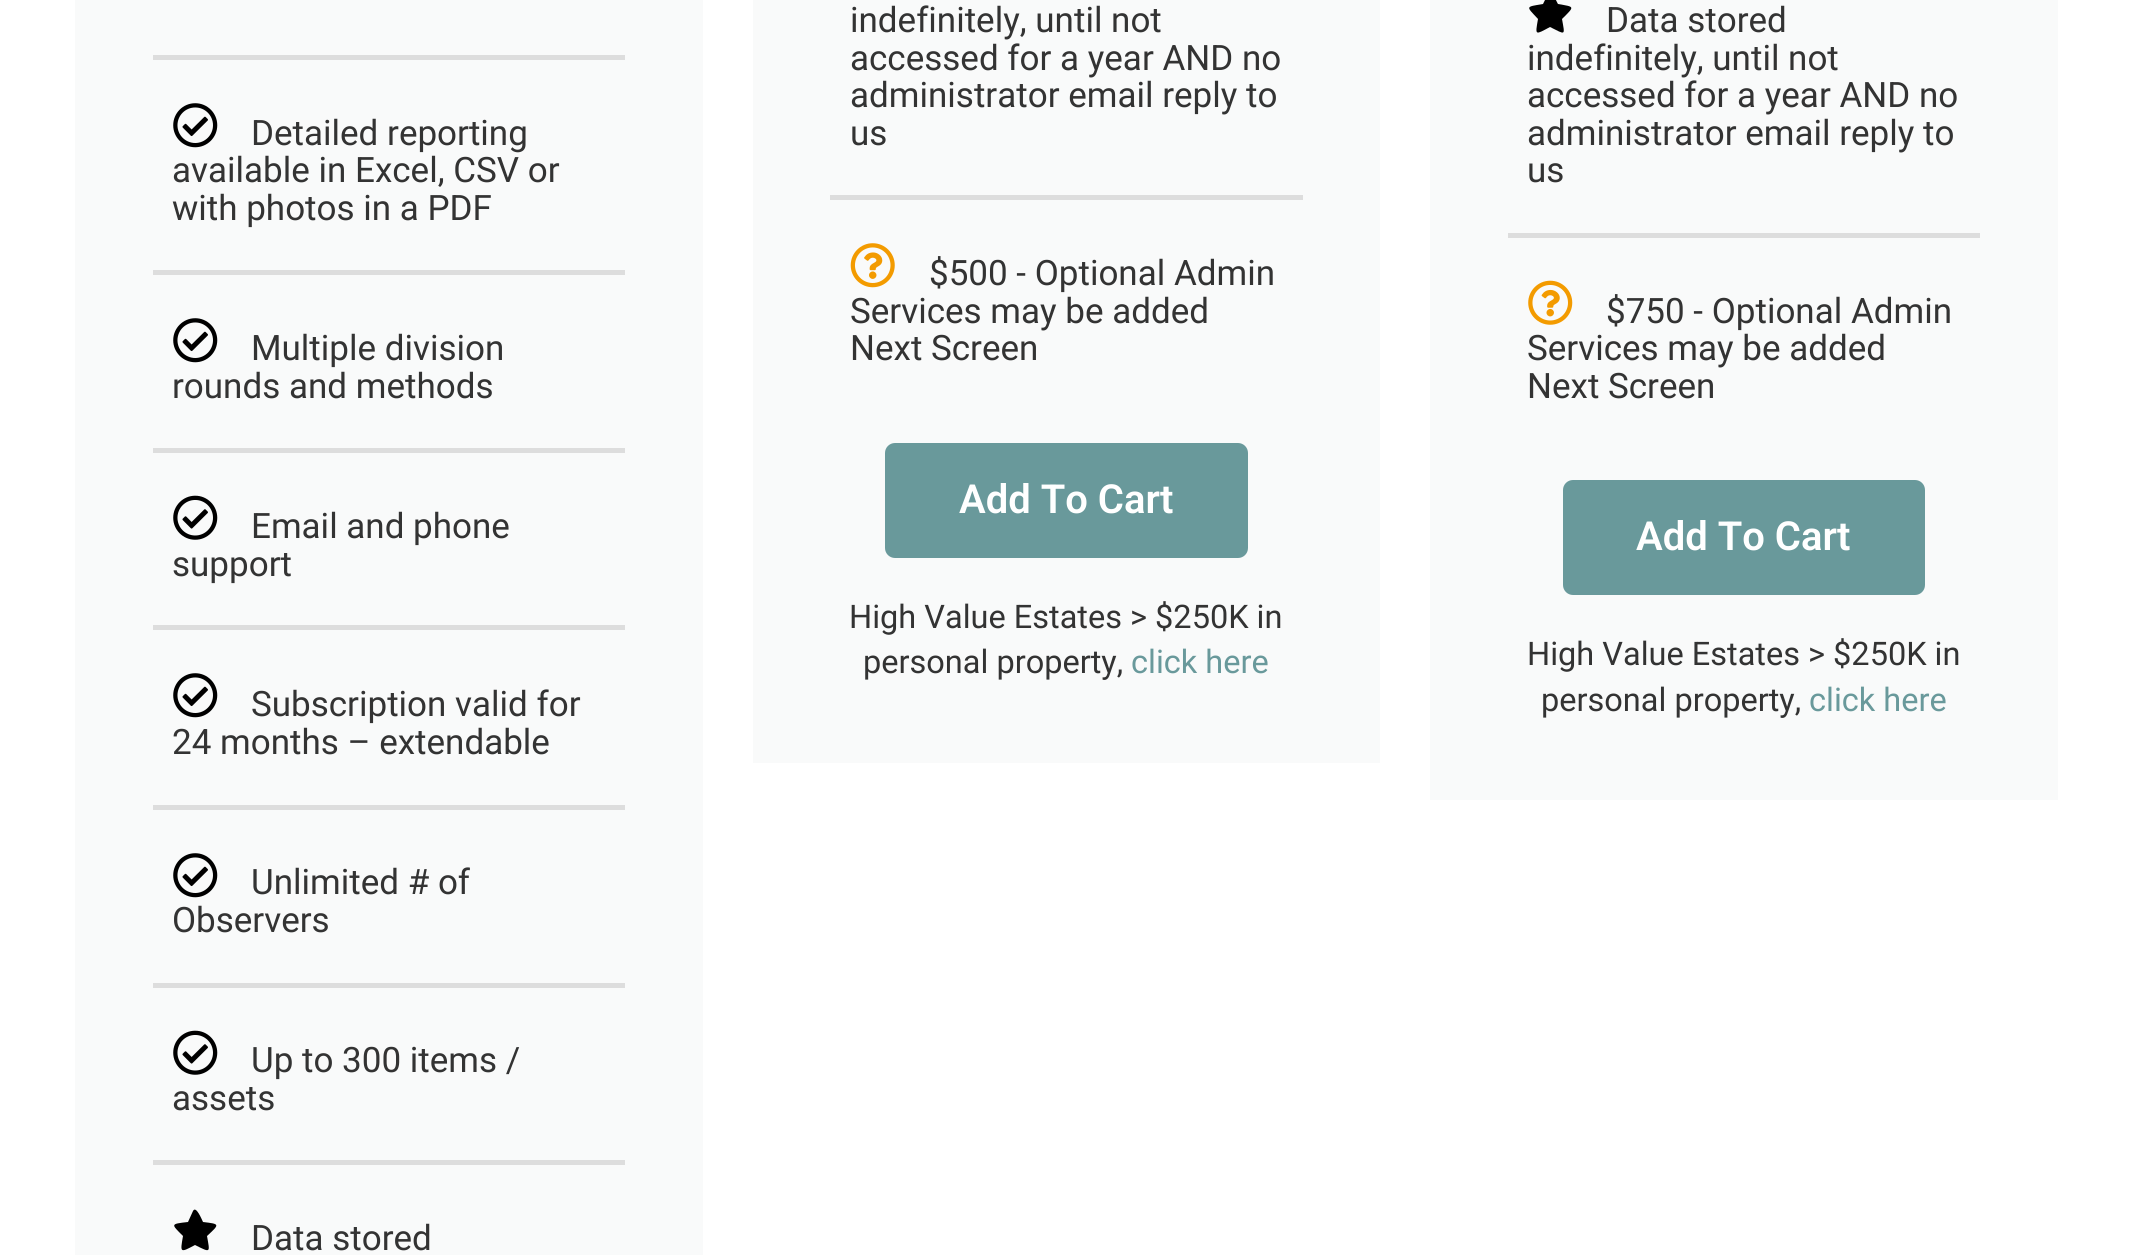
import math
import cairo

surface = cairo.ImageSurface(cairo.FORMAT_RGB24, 2131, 1255)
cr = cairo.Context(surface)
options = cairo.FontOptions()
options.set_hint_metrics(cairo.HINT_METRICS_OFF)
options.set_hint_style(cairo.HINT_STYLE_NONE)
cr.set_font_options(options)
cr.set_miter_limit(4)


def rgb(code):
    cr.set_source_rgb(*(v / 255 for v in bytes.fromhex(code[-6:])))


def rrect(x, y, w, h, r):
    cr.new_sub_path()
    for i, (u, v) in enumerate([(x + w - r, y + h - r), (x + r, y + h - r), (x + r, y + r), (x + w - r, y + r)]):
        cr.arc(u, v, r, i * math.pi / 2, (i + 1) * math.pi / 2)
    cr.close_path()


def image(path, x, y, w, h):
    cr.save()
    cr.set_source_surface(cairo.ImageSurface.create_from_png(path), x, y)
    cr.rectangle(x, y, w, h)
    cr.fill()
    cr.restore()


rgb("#ffffff")
cr.paint()
rgb("#f9fafa")
cr.rectangle(75, 0, 628, 1255)
cr.fill()
rgb("#dddddd")
cr.rectangle(153, 55, 472, 5)
cr.fill()
image("img/1.png", 173, 103, 45, 45)
cr.rectangle(153, 270, 472, 5)
cr.fill()
image("img/1.png", 173, 318, 45, 45)
cr.rectangle(153, 448, 472, 5)
cr.fill()
image("img/2.png", 173, 495, 45, 45)
cr.rectangle(153, 625, 472, 5)
cr.fill()
image("img/1.png", 173, 673, 45, 45)
cr.rectangle(153, 805, 472, 5)
cr.fill()
image("img/1.png", 173, 853, 45, 45)
cr.rectangle(153, 983, 472, 5)
cr.fill()
image("img/2.png", 173, 1030, 45, 45)
cr.rectangle(153, 1160, 472, 5)
cr.fill()
rgb("#000000")
cr.new_path()
cr.move_to(193, 1211)
cr.line_to(188, 1222)
cr.curve_to(170, 1224, 171, 1224, 183, 1236)
cr.curve_to(180, 1253, 180, 1253, 195, 1245)
cr.curve_to(211, 1253, 210, 1253, 207, 1236)
cr.curve_to(220, 1224, 220, 1224, 203, 1222)
cr.curve_to(202, 1220, 196, 1205, 193, 1211)
cr.close_path()
cr.fill()
rgb("#f9fafa")
cr.rectangle(753, 0, 627, 763)
cr.fill()
rgb("#dddddd")
cr.rectangle(830, 195, 473, 5)
cr.fill()
image("img/3.png", 850, 243, 45, 45)
rgb("#69999b")
rrect(885, 443, 363, 115, 10)
cr.fill()
rgb("#f9fafa")
cr.rectangle(1430, 0, 628, 800)
cr.fill()
rgb("#000000")
cr.new_path()
cr.move_to(1548, -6)
cr.line_to(1543, 4)
cr.curve_to(1525, 7, 1526, 6, 1538, 19)
cr.curve_to(1535, 36, 1535, 35, 1550, 27)
cr.curve_to(1566, 35, 1565, 36, 1562, 19)
cr.curve_to(1575, 6, 1575, 7, 1558, 4)
cr.curve_to(1557, 3, 1551, -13, 1548, -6)
cr.close_path()
cr.fill()
rgb("#dddddd")
cr.rectangle(1508, 233, 472, 5)
cr.fill()
image("img/4.png", 1528, 280, 45, 45)
rgb("#69999b")
rrect(1563, 480, 362, 115, 10)
cr.fill()
cr.select_font_face("Roboto")
cr.set_font_size(35)
rgb("#333333")
for x, y, s in [
    (251, 145, "Detailed reporting"),
    (172, 182, "available in Excel, CSV or"),
    (172, 220, "with photos in a PDF"),
    (251, 360, "Multiple division"),
    (172, 398, "rounds and methods"),
    (251, 538, "Email and phone"),
    (172, 576, "support"),
    (251, 716, "Subscription valid for"),
    (172, 754, "24 months – extendable"),
    (251, 894, "Unlimited # of"),
    (172, 932, "Observers"),
    (251, 1072, "Up to 300 items /"),
    (172, 1110, "assets"),
    (251, 1250, "Data stored"),
    (850, 32, "indefinitely, until not"),
    (850, 70, "accessed for a year AND no"),
    (850, 107, "administrator email reply to"),
    (850, 145, "us"),
    (929, 285, "$500 - Optional Admin"),
    (850, 323, "Services may be added"),
    (850, 360, "Next Screen"),
]:
    cr.move_to(x, y)
    cr.show_text(s)
cr.select_font_face("Roboto SemiBold")
cr.set_font_size(40)
rgb("#ffffff")
cr.move_to(959, 513)
cr.show_text("Add To Cart")
cr.select_font_face("Roboto")
cr.set_font_size(32.5)
rgb("#333333")
cr.move_to(849, 628)
cr.show_text("High Value Estates > $250K in")
cr.move_to(863, 673)
cr.show_text("personal property,")
rgb("#69999b")
cr.move_to(1131, 673)
cr.show_text("click here")
cr.set_font_size(35)
rgb("#333333")
for x, y, s in [
    (1606, 32, "Data stored"),
    (1527, 70, "indefinitely, until not"),
    (1527, 107, "accessed for a year AND no"),
    (1527, 145, "administrator email reply to"),
    (1527, 182, "us"),
    (1606, 323, "$750 - Optional Admin"),
    (1527, 360, "Services may be added"),
    (1527, 398, "Next Screen"),
]:
    cr.move_to(x, y)
    cr.show_text(s)
cr.select_font_face("Roboto SemiBold")
cr.set_font_size(40)
rgb("#ffffff")
cr.move_to(1636, 550)
cr.show_text("Add To Cart")
cr.select_font_face("Roboto")
cr.set_font_size(32.5)
rgb("#333333")
cr.move_to(1527, 665)
cr.show_text("High Value Estates > $250K in")
cr.move_to(1541, 711)
cr.show_text("personal property,")
rgb("#69999b")
cr.move_to(1809, 711)
cr.show_text("click here")
surface.write_to_png("page.png")
